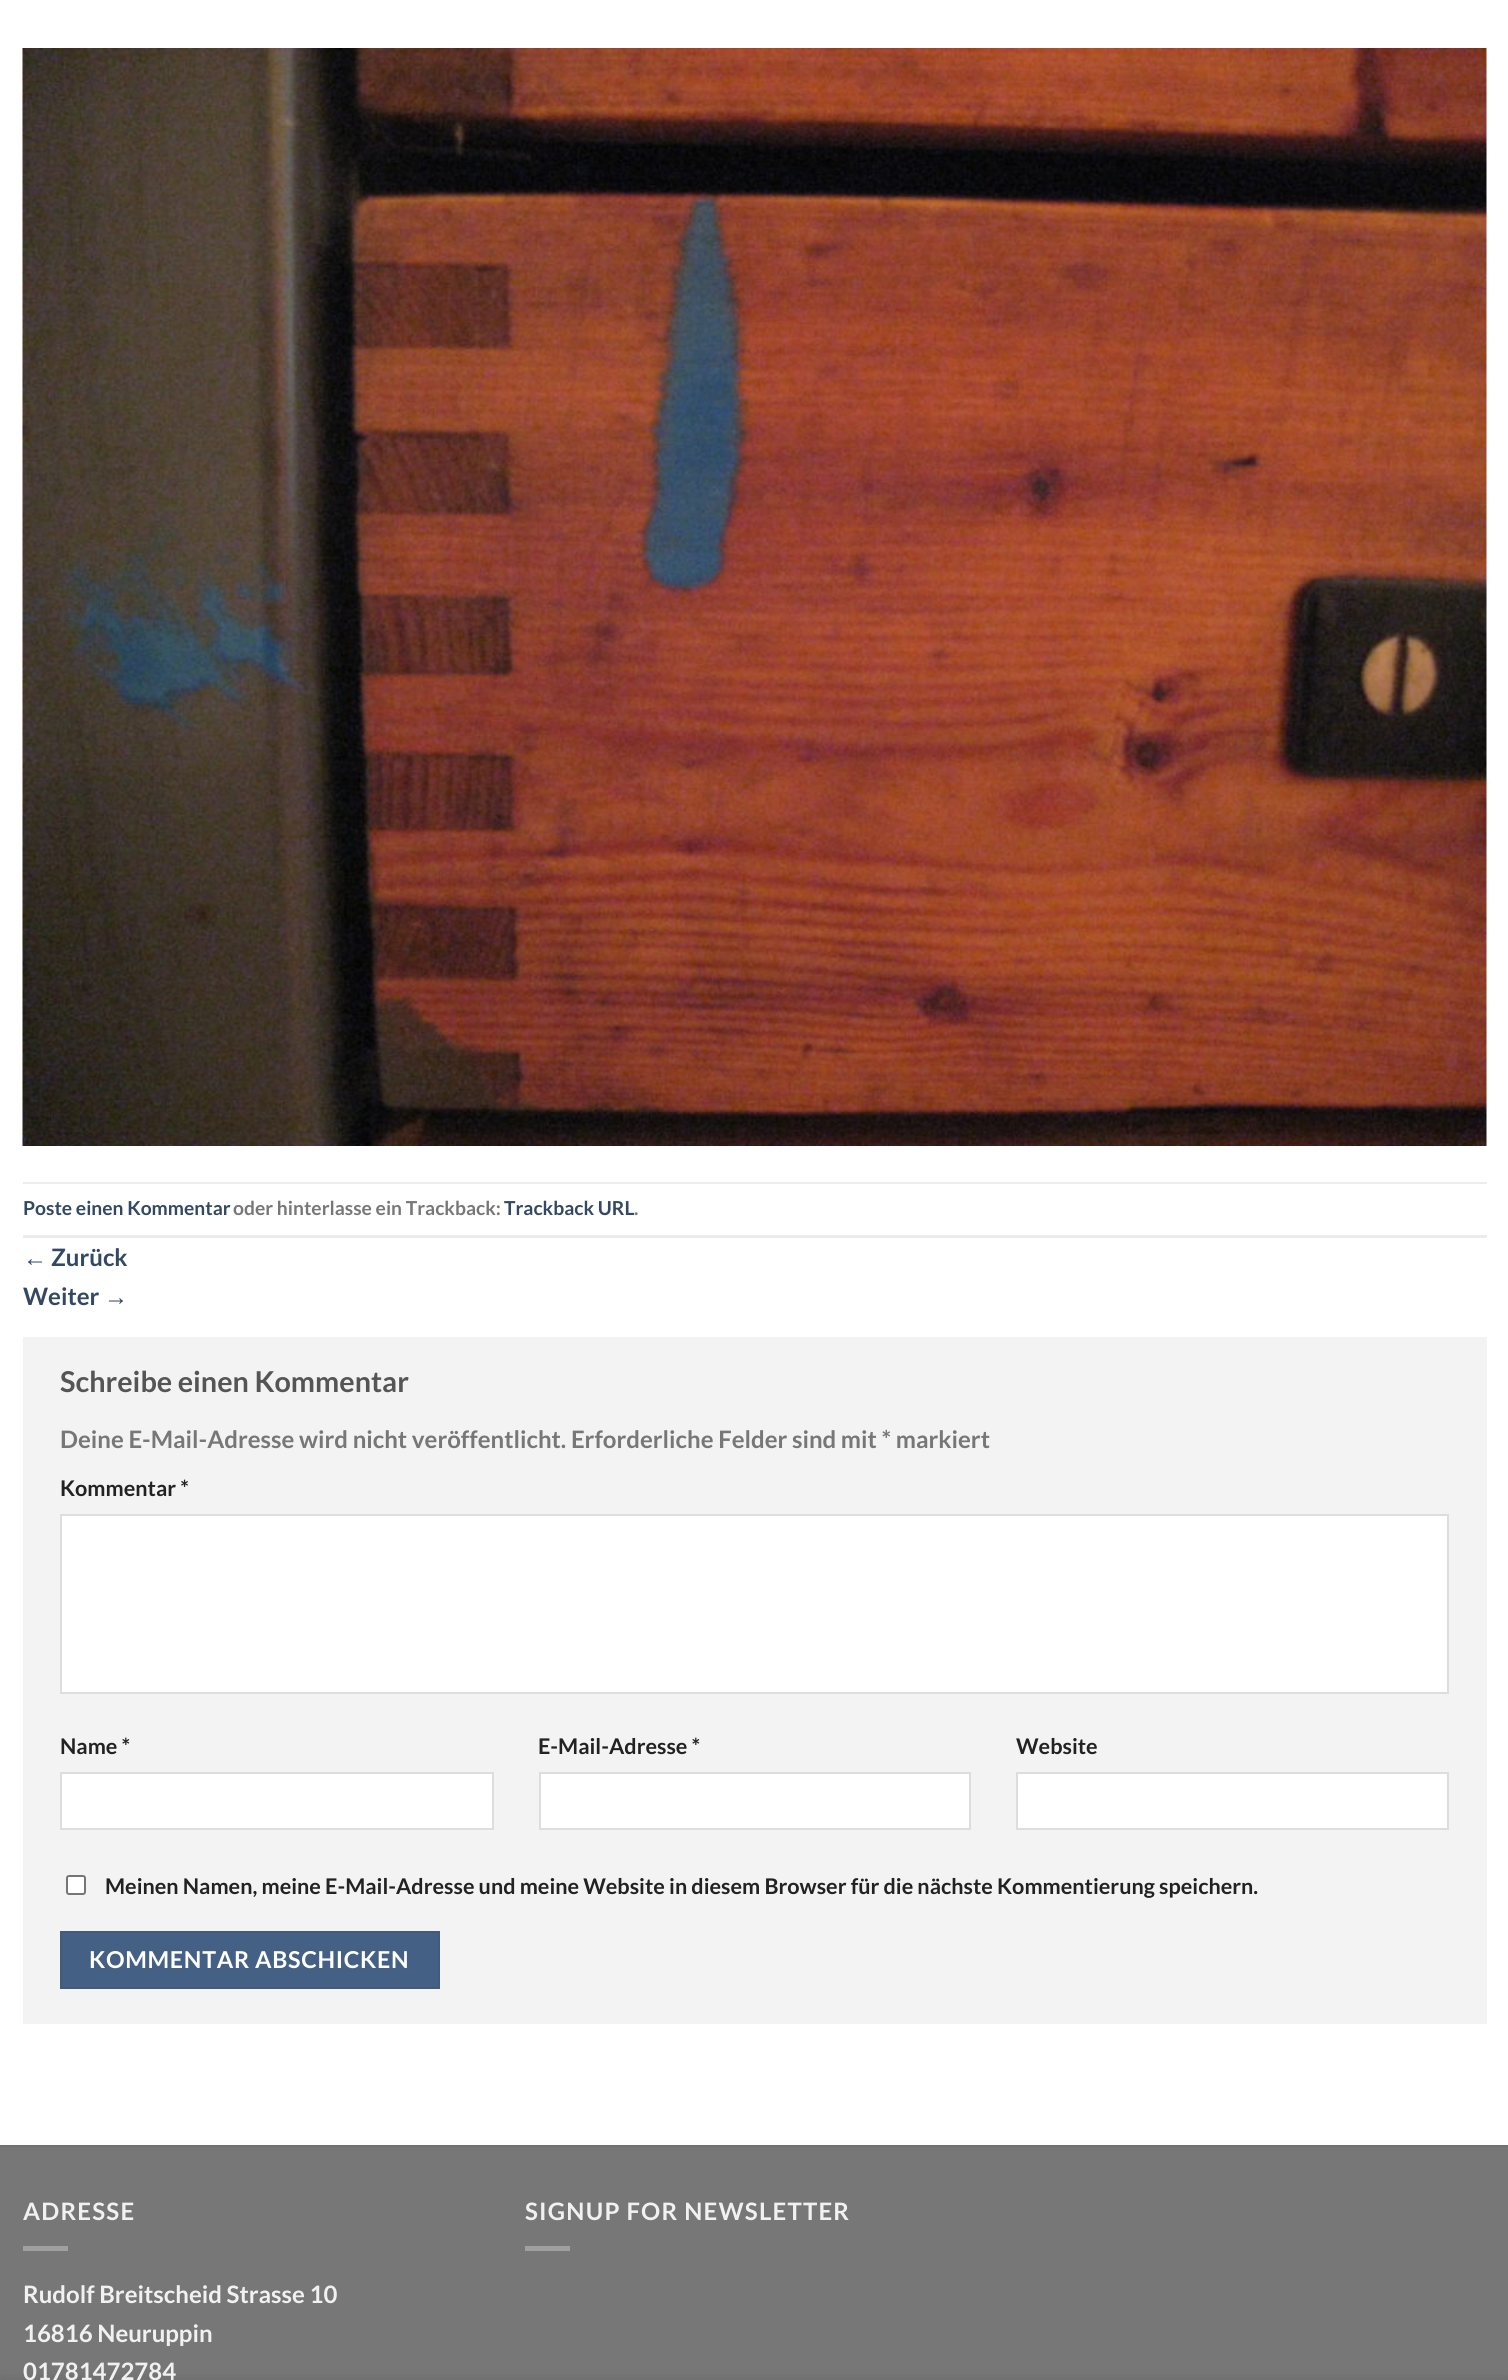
import math
import cairo

surface = cairo.ImageSurface(cairo.FORMAT_RGB24, 1508, 2380)
cr = cairo.Context(surface)
options = cairo.FontOptions()
options.set_hint_metrics(cairo.HINT_METRICS_OFF)
options.set_hint_style(cairo.HINT_STYLE_NONE)
cr.set_font_options(options)
cr.set_miter_limit(4)


def rgb(code):
    cr.set_source_rgb(*(v / 255 for v in bytes.fromhex(code[-6:])))


def tracked(x, y, s, letter, word):
    cr.move_to(x, y)
    for ch in s:
        cr.show_text(ch)
        cr.rel_move_to(letter + word * (ch == ' '), 0)


def rrect(x, y, w, h, r):
    cr.new_sub_path()
    for i, (u, v) in enumerate([(x + w - r, y + h - r), (x + r, y + h - r), (x + r, y + r), (x + w - r, y + r)]):
        cr.arc(u, v, r, i * math.pi / 2, (i + 1) * math.pi / 2)
    cr.close_path()


def soft_shadow(x, y, w, h, r, blur, alpha):
    cr.push_group_with_content(cairo.CONTENT_ALPHA)
    cr.set_operator(cairo.OPERATOR_SOURCE)
    for i in range(15, -16, -2):
        e = blur * i / 6
        if min(w, h) + 2 * e > 0:
            cr.set_source_rgba(0, 0, 0, alpha * math.erfc((i - 1) / 8.5) / 2)
            rrect(x - e, y - e, w + 2 * e, h + 2 * e, max(0, min(r + e + blur * .6, min(w, h) / 2 + e)))
            cr.fill()
    cr.mask(cr.pop_group())


def image(path, x, y, w, h):
    cr.save()
    cr.set_source_surface(cairo.ImageSurface.create_from_png(path), x, y)
    cr.rectangle(x, y, w, h)
    cr.fill()
    cr.restore()


rgb("#ffffff")
cr.paint()
image("img/1.png", 22, 48, 1465, 1098)
for x, y, w, h, color in [
    (23, 1182, 1464, 2, "#ececec"),
    (23, 1235, 1464, 3, "#ececec"),
    (23, 1337, 1464, 687, "#f3f3f3"),
]:
    rgb(color)
    cr.rectangle(x, y, w, h)
    cr.fill()
rgb("#ffffff")
cr.rectangle(61, 1515, 1387, 178)
cr.fill_preserve()
rgb("#dddddd")
cr.stroke()
rgb("#ffffff")
cr.rectangle(61, 1773, 432, 56)
cr.fill_preserve()
rgb("#dddddd")
cr.stroke()
rgb("#ffffff")
cr.rectangle(540, 1773, 430, 56)
cr.fill_preserve()
rgb("#dddddd")
cr.stroke()
rgb("#ffffff")
cr.rectangle(1017, 1773, 431, 56)
cr.fill_preserve()
rgb("#dddddd")
cr.stroke()
rgb("#ffffff")
rrect(67, 1876, 18, 18, 2)
cr.fill_preserve()
rgb("#767676")
cr.stroke()
rgb("#446084")
cr.rectangle(61, 1932, 378, 56)
cr.fill_preserve()
rgb("#415b7d")
cr.stroke()
for x, y, w, h, color in [
    (0, 2147, 1508, 233, "#777777"),
    (0, 2145, 1508, 2, "#717171"),
    (23, 2246, 45, 5, "#a0a0a0"),
    (525, 2246, 45, 5, "#a0a0a0"),
]:
    rgb(color)
    cr.rectangle(x, y, w, h)
    cr.fill()
rgb("#000000")
soft_shadow(0, 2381, 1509, 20, 0, 7, 0.14)
cr.select_font_face("Lato", cairo.FONT_SLANT_NORMAL, cairo.FONT_WEIGHT_BOLD)
cr.set_font_size(19.25)
rgb("#334862")
cr.move_to(23, 1215)
cr.show_text("Poste einen Kommentar")
rgb("#777777")
cr.move_to(233, 1215)
cr.show_text("oder hinterlasse ein Trackback:")
rgb("#334862")
cr.move_to(504, 1215)
cr.show_text("Trackback URL")
rgb("#777777")
cr.move_to(634, 1215)
cr.show_text(".")
cr.select_font_face("Liberation Sans")
cr.set_font_size(24)
rgb("#334862")
cr.move_to(23, 1266)
cr.show_text("←")
cr.select_font_face("Lato", cairo.FONT_SLANT_NORMAL, cairo.FONT_WEIGHT_BOLD)
cr.move_to(51, 1266)
cr.show_text("Zurück")
cr.move_to(23, 1305)
cr.show_text("Weiter")
cr.select_font_face("Liberation Sans")
cr.move_to(104, 1305)
cr.show_text("→")
cr.select_font_face("Lato", cairo.FONT_SLANT_NORMAL, cairo.FONT_WEIGHT_BOLD)
cr.set_font_size(28.75)
rgb("#555555")
cr.move_to(60, 1392)
cr.show_text("Schreibe einen Kommentar")
cr.set_font_size(24)
rgb("#777777")
cr.move_to(60, 1448)
cr.show_text("Deine E-Mail-Adresse wird nicht veröffentlicht. Erforderliche Felder sind mit * markiert")
cr.set_font_size(21.6)
rgb("#222222")
for x, y, s in [
    (60, 1496, "Kommentar *"),
    (60, 1754, "Name *"),
    (538, 1754, "E-Mail-Adresse *"),
    (1016, 1754, "Website"),
    (105, 1894, "Meinen Namen, meine E-Mail-Adresse und meine Website in diesem Browser für die nächste Kommentierung speichern."),
]:
    cr.move_to(x, y)
    cr.show_text(s)
cr.set_font_size(23.25)
rgb("#ffffff")
tracked(89, 1968, "KOMMENTAR ABSCHICKEN", 0.7, 0)
cr.set_font_size(24)
rgb("#f1f1f1")
tracked(23, 2220, "ADRESSE", 1.2, 0)
for x, y, s in [
    (23, 2303, "Rudolf Breitscheid Strasse 10"),
    (23, 2342, "16816 Neuruppin"),
    (23, 2380, "01781472784"),
]:
    cr.move_to(x, y)
    cr.show_text(s)
tracked(525, 2220, "SIGNUP FOR NEWSLETTER", 1.2, 0)
surface.write_to_png("page.png")
